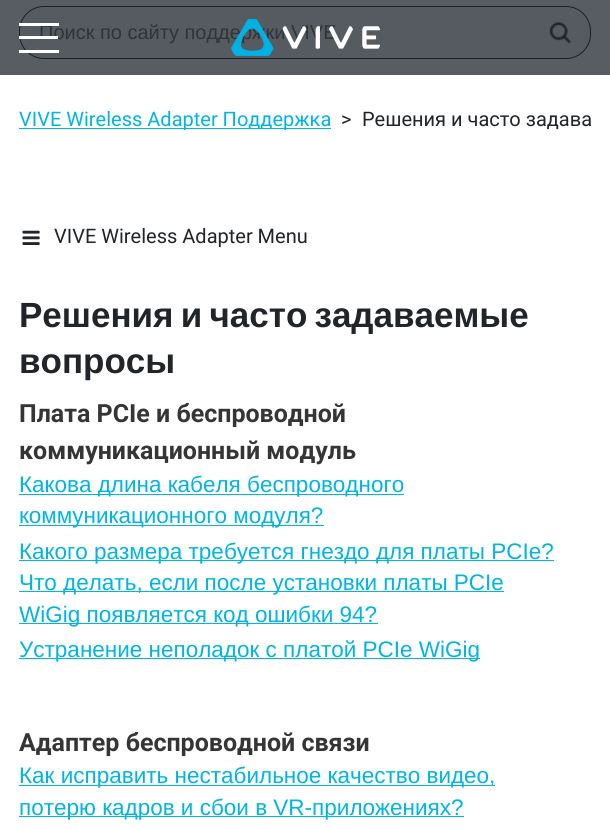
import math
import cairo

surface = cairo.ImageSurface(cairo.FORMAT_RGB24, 610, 829)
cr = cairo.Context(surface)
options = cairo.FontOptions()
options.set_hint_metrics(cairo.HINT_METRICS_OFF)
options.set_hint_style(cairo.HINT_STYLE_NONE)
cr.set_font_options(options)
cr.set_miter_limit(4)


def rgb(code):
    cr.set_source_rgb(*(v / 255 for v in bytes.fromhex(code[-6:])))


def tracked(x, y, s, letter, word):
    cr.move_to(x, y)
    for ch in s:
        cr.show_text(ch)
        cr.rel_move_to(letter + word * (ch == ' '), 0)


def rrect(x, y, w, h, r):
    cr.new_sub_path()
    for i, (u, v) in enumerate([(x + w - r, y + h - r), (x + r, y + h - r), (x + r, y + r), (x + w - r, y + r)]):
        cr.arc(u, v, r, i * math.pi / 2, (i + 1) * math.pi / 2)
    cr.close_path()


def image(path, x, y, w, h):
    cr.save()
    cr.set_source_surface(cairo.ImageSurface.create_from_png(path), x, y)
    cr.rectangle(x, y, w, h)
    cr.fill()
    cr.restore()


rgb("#ffffff")
cr.paint()
rgb("#585d63")
cr.rectangle(0, 0, 610, 75)
cr.fill()
rgb("#555b61")
rrect(19.5, 6.5, 571, 52, 24.5)
cr.fill_preserve()
rgb("#1b2026")
cr.set_line_width(1)
cr.stroke()
rgb("#ffffff")
cr.rectangle(19, 50, 40, 3)
cr.fill()
image("img/2.png", 549, 21, 23, 23)
rgb("#00b5e2")
cr.rectangle(19, 128, 312, 1)
cr.fill()
image("img/3.png", 22, 230, 18, 15)
for x, y, w, h, color in [
    (19, 494, 385, 1, "#00b5e2"),
    (19, 525, 305, 1, "#00b5e2"),
    (19, 560, 535, 1, "#00b5e2"),
    (19, 591, 485, 1, "#00b5e2"),
    (19, 623, 359, 1, "#00b5e2"),
    (19, 658, 461, 1, "#00b5e2"),
    (19, 785, 476, 1, "#00b5e2"),
    (19, 816, 445, 1, "#00b5e2"),
]:
    rgb(color)
    cr.rectangle(x, y, w, h)
    cr.fill()
cr.select_font_face("Liberation Sans")
cr.set_font_size(20)
rgb("#2f343a")
cr.move_to(39, 39)
cr.show_text("Поиск по сайту поддержки VIVE")
rgb("#ffffff")
cr.rectangle(19, 23, 40, 3)
cr.fill()
cr.rectangle(19, 36, 39, 3)
cr.fill()
image("img/1.png", 231, 19, 149, 37)
cr.select_font_face("Roboto")
rgb("#00b5e2")
cr.move_to(19, 126)
cr.show_text("VIVE Wireless Adapter Поддержка")
rgb("#212529")
for x, y, s in [
    (341, 126, ">"),
    (362, 126, "Решения и часто задава"),
    (54, 243, "VIVE Wireless Adapter Menu"),
]:
    cr.move_to(x, y)
    cr.show_text(s)
cr.select_font_face("Liberation Sans", cairo.FONT_SLANT_NORMAL, cairo.FONT_WEIGHT_BOLD)
cr.set_font_size(35)
tracked(19, 327, "Решения и часто задаваемые", 0, -2.5)
cr.move_to(19, 373)
cr.show_text("вопросы")
cr.select_font_face("Roboto", cairo.FONT_SLANT_NORMAL, cairo.FONT_WEIGHT_BOLD)
cr.set_font_size(25)
rgb("#353535")
cr.move_to(19, 422)
cr.show_text("Плата PCIe и беспроводной")
cr.move_to(19, 459)
cr.show_text("коммуникационный модуль")
cr.select_font_face("Liberation Sans")
cr.set_font_size(22.5)
rgb("#00b5e2")
for x, y, s in [
    (19, 492, "Какова длина кабеля беспроводного"),
    (19, 523, "коммуникационного модуля?"),
    (19, 559, "Какого размера требуется гнездо для платы PCIe?"),
    (19, 590, "Что делать, если после установки платы PCIe"),
    (19, 622, "WiGig появляется код ошибки 94?"),
    (19, 657, "Устранение неполадок с платой PCIe WiGig"),
]:
    cr.move_to(x, y)
    cr.show_text(s)
cr.select_font_face("Roboto", cairo.FONT_SLANT_NORMAL, cairo.FONT_WEIGHT_BOLD)
cr.set_font_size(25)
rgb("#353535")
cr.move_to(19, 751)
cr.show_text("Адаптер беспроводной связи")
cr.select_font_face("Liberation Sans")
cr.set_font_size(22.5)
rgb("#00b5e2")
cr.move_to(19, 783)
cr.show_text("Как исправить нестабильное качество видео,")
cr.move_to(19, 815)
cr.show_text("потерю кадров и сбои в VR-приложениях?")
surface.write_to_png("page.png")
